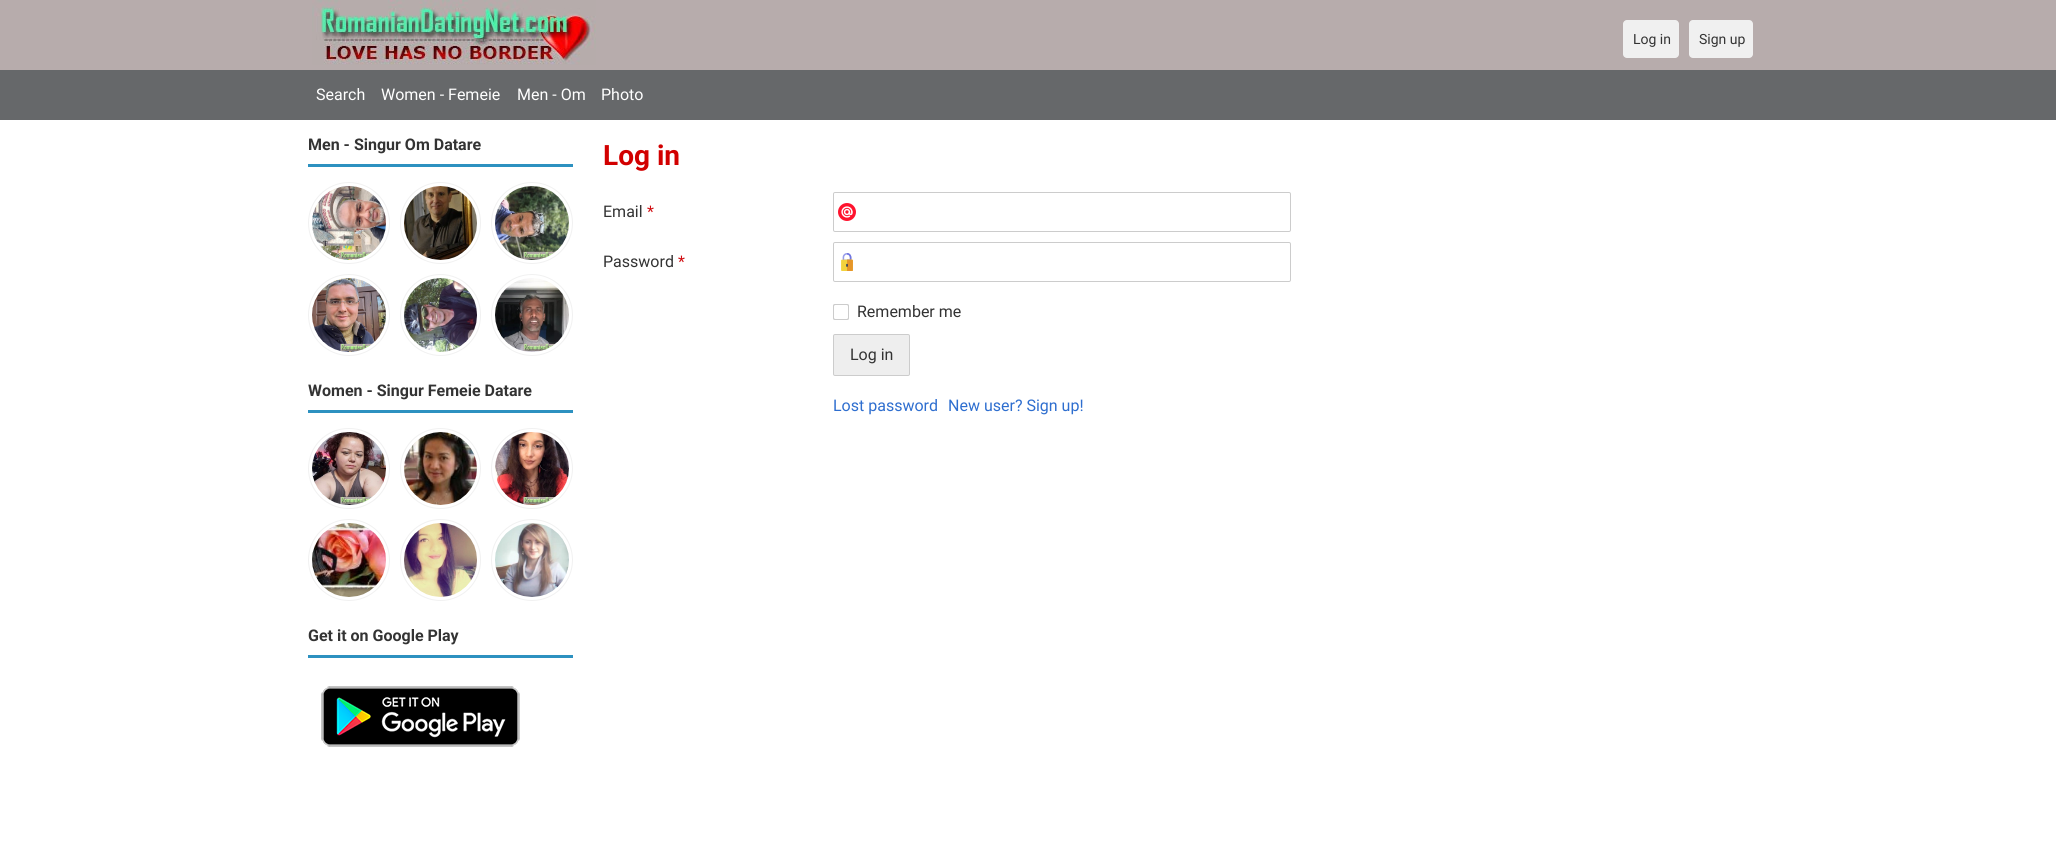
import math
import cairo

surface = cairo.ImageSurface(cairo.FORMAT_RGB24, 2056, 849)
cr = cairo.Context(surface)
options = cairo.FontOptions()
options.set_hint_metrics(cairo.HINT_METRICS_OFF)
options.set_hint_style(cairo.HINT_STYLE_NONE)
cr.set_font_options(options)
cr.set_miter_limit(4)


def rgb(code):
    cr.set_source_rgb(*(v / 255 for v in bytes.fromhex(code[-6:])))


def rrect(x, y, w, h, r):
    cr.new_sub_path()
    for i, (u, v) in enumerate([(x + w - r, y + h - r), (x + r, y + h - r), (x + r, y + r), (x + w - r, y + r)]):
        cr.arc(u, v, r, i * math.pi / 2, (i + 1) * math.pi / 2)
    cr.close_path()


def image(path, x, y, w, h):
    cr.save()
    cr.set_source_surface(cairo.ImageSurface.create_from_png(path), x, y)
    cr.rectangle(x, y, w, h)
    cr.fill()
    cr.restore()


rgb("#ffffff")
cr.paint()
rgb("#b7acac")
cr.rectangle(0, 0, 2056, 70)
cr.fill()
image("img/1.png", 312, 0, 284, 65)
rgb("#66686a")
cr.rectangle(0, 70, 2056, 50)
cr.fill()
rgb("#f0f0f0")
rrect(1623, 20, 56, 38, 4)
cr.fill()
rrect(1689, 20, 64, 38, 4)
cr.fill()
rgb("#2d91c0")
cr.rectangle(308, 164, 265, 3)
cr.fill()
cr.arc(349, 223, 40.5, 0, 2 * math.pi)
rgb("#f1f1f1")
cr.set_line_width(1)
cr.stroke()
image("img/2.png", 312, 186, 74, 74)
rrect(400.5, 182.5, 80, 81, 40)
cr.stroke()
image("img/3.png", 404, 186, 73, 74)
cr.arc(532, 223, 40.5, 0, 2 * math.pi)
cr.stroke()
image("img/4.png", 495, 186, 74, 74)
cr.arc(349, 315, 40.5, 0, 2 * math.pi)
cr.stroke()
image("img/5.png", 312, 278, 74, 74)
rrect(400.5, 274.5, 80, 81, 40)
cr.stroke()
image("img/6.png", 404, 278, 73, 74)
cr.arc(532, 315, 40.5, 0, 2 * math.pi)
cr.stroke()
image("img/7.png", 495, 278, 74, 74)
rgb("#2d91c0")
cr.rectangle(308, 410, 265, 3)
cr.fill()
rrect(308.5, 428.5, 81, 80, 40)
rgb("#f1f1f1")
cr.stroke()
image("img/8.png", 312, 432, 74, 73)
cr.arc(440.5, 468.5, 40, 0, 2 * math.pi)
cr.stroke()
image("img/9.png", 404, 432, 73, 73)
rrect(491.5, 428.5, 81, 80, 40)
cr.stroke()
image("img/10.png", 495, 432, 74, 73)
cr.arc(349, 560, 40.5, 0, 2 * math.pi)
cr.stroke()
image("img/11.png", 312, 523, 74, 74)
rrect(400.5, 519.5, 80, 81, 40)
cr.stroke()
image("img/12.png", 404, 523, 73, 74)
cr.arc(532, 560, 40.5, 0, 2 * math.pi)
cr.stroke()
image("img/13.png", 495, 523, 74, 74)
rgb("#2d91c0")
cr.rectangle(308, 655, 265, 3)
cr.fill()
image("img/14.png", 321, 686, 199, 61)
image("img/15.png", 838, 203, 18, 18)
rrect(833.5, 192.5, 457, 39, 1.5)
rgb("#cccccc")
cr.stroke()
image("img/16.png", 841, 253, 12, 18)
rrect(833.5, 242.5, 457, 39, 1.5)
cr.stroke()
image("img/17.png", 833, 304, 16, 16)
rgb("#eeeeee")
rrect(833.5, 334.5, 76, 41, 1.5)
cr.fill_preserve()
rgb("#cccccc")
cr.stroke()
cr.select_font_face("Roboto")
cr.set_font_size(14)
rgb("#333333")
cr.move_to(1633, 44)
cr.show_text("Log in")
cr.move_to(1699, 44)
cr.show_text("Sign up")
cr.set_font_size(16)
rgb("#ffffff")
for x, y, s in [
    (316, 100, "Search"),
    (381, 100, "Women - Femeie"),
    (517, 100, "Men - Om"),
    (601, 100, "Photo"),
]:
    cr.move_to(x, y)
    cr.show_text(s)
cr.select_font_face("Roboto", cairo.FONT_SLANT_NORMAL, cairo.FONT_WEIGHT_BOLD)
rgb("#333333")
for x, y, s in [
    (308, 150, "Men - Singur Om Datare"),
    (308, 396, "Women - Singur Femeie Datare"),
    (308, 641, "Get it on Google Play"),
]:
    cr.move_to(x, y)
    cr.show_text(s)
cr.set_font_size(28)
rgb("#d20000")
cr.move_to(603, 165)
cr.show_text("Log in")
cr.select_font_face("Roboto")
cr.set_font_size(16)
rgb("#333333")
cr.move_to(603, 217)
cr.show_text("Email")
rgb("#d00e12")
cr.move_to(647, 217)
cr.show_text("*")
rgb("#333333")
cr.move_to(603, 267)
cr.show_text("Password")
rgb("#d00e12")
cr.move_to(678, 267)
cr.show_text("*")
rgb("#333333")
cr.move_to(857, 317)
cr.show_text("Remember me")
cr.move_to(850, 360)
cr.show_text("Log in")
rgb("#2e6ecf")
cr.move_to(833, 411)
cr.show_text("Lost password")
cr.move_to(948, 411)
cr.show_text("New user? Sign up!")
surface.write_to_png("page.png")
